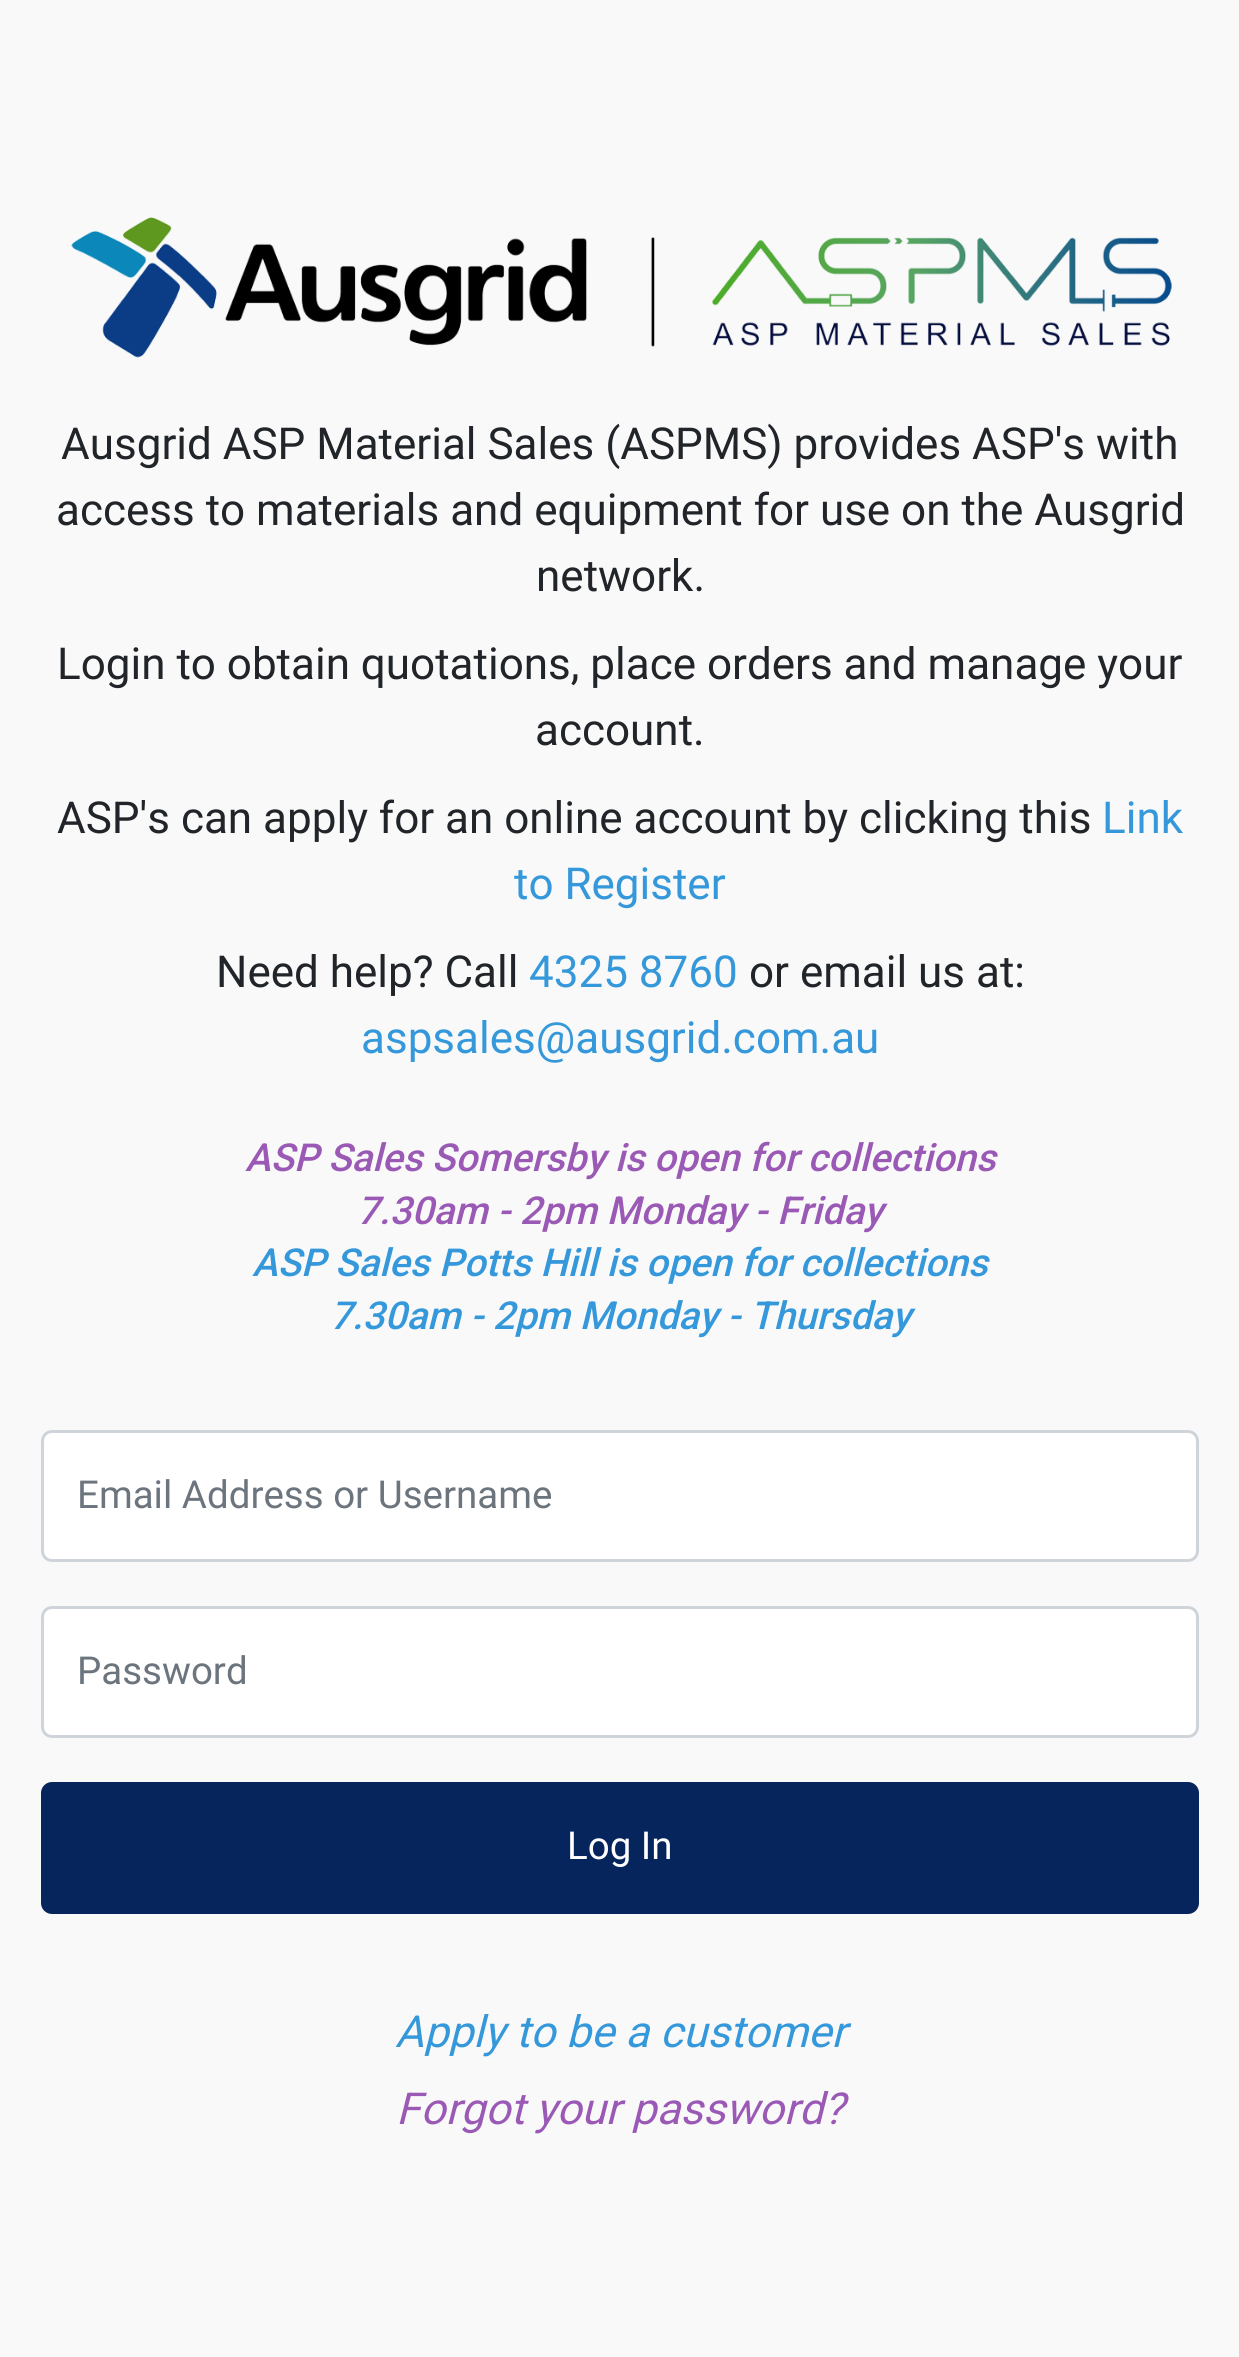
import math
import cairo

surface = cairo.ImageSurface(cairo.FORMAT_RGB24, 1239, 2357)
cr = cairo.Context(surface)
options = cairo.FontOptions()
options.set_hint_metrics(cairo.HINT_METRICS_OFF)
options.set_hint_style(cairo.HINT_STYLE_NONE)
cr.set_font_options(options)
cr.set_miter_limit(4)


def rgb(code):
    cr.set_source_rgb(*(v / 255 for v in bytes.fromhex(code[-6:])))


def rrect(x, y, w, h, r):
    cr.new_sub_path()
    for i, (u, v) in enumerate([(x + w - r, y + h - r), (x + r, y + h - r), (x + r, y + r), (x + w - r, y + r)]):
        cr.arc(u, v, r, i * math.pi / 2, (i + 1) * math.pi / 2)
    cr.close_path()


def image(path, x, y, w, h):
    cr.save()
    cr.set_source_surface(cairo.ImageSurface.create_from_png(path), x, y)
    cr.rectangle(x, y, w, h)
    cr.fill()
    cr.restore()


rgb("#f9f9f9")
cr.paint()
image("img/1.png", 71, 217, 1101, 141)
rgb("#ffffff")
rrect(42.5, 1431.5, 1155, 129, 9.5)
cr.fill_preserve()
rgb("#ced4da")
cr.set_line_width(3)
cr.stroke()
rgb("#ffffff")
rrect(42.5, 1607.5, 1155, 129, 9.5)
cr.fill_preserve()
rgb("#ced4da")
cr.stroke()
rgb("#07255d")
rrect(42.5, 1783.5, 1155, 129, 9.5)
cr.fill_preserve()
cr.stroke()
cr.select_font_face("Roboto")
cr.set_font_size(44)
rgb("#212529")
for x, y, s in [
    (61, 459, "Ausgrid ASP Material Sales (ASPMS) provides ASP's with"),
    (56, 525, "access to materials and equipment for use on the Ausgrid"),
    (536, 591, "network."),
    (57, 679, "Login to obtain quotations, place orders and manage your"),
    (535, 745, "account."),
    (57, 833, "ASP's can apply for an online account by clicking this"),
]:
    cr.move_to(x, y)
    cr.show_text(s)
rgb("#3498db")
cr.move_to(1102, 833)
cr.show_text("Link")
cr.move_to(514, 899)
cr.show_text("to Register")
rgb("#212529")
cr.move_to(216, 987)
cr.show_text("Need help? Call")
rgb("#3498db")
cr.move_to(529, 987)
cr.show_text("4325 8760")
rgb("#212529")
cr.move_to(749, 987)
cr.show_text("or email us at:")
rgb("#3498db")
cr.move_to(361, 1053)
cr.show_text("aspsales@ausgrid.com.au")
cr.select_font_face("Roboto Medium", cairo.FONT_SLANT_ITALIC)
cr.set_font_size(38.5)
rgb("#9b59b6")
cr.move_to(245, 1171)
cr.show_text("ASP Sales Somersby is open for collections")
cr.move_to(357, 1224)
cr.show_text("7.30am - 2pm Monday - Friday")
rgb("#3498db")
cr.move_to(252, 1276)
cr.show_text("ASP Sales Potts Hill is open for collections")
cr.move_to(330, 1329)
cr.show_text("7.30am - 2pm Monday - Thursday")
cr.select_font_face("Roboto")
rgb("#6c757d")
cr.move_to(77, 1508)
cr.show_text("Email Address or Username")
cr.move_to(77, 1684)
cr.show_text("Password")
rgb("#ffffff")
cr.move_to(567, 1859)
cr.show_text("Log In")
cr.select_font_face("Roboto", cairo.FONT_SLANT_ITALIC)
cr.set_font_size(44)
rgb("#3498db")
cr.move_to(395, 2047)
cr.show_text("Apply to be a customer")
rgb("#9b59b6")
cr.move_to(396, 2124)
cr.show_text("Forgot your password?")
surface.write_to_png("page.png")
